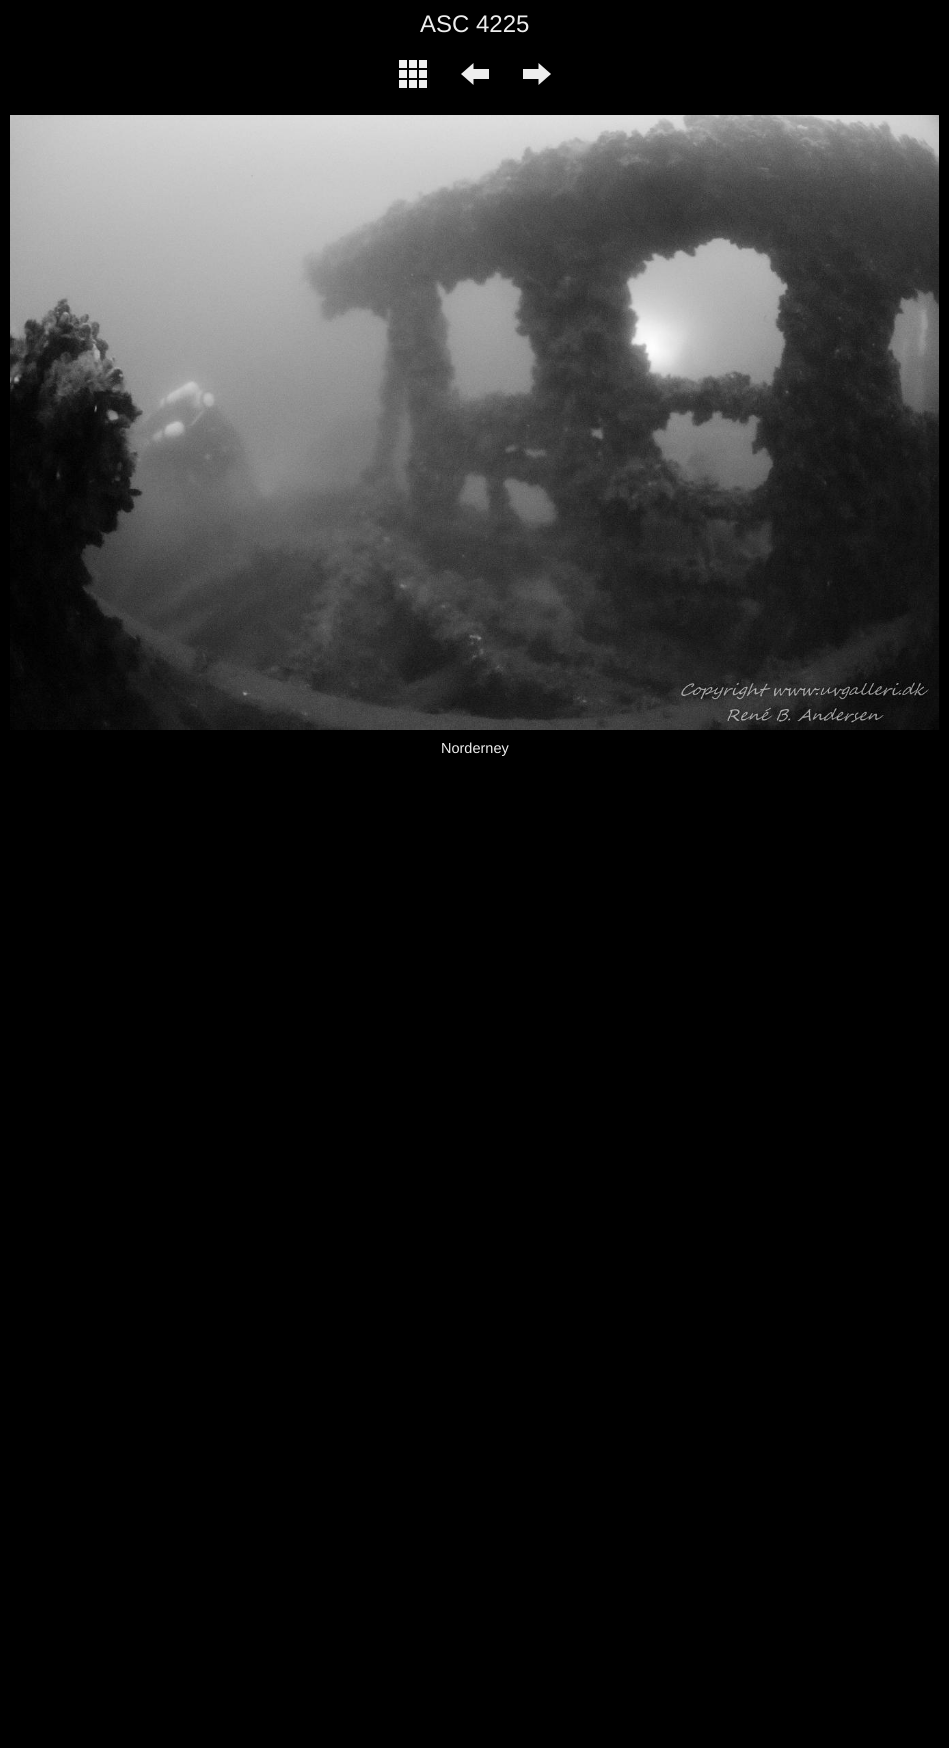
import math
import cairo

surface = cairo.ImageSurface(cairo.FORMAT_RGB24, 949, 1748)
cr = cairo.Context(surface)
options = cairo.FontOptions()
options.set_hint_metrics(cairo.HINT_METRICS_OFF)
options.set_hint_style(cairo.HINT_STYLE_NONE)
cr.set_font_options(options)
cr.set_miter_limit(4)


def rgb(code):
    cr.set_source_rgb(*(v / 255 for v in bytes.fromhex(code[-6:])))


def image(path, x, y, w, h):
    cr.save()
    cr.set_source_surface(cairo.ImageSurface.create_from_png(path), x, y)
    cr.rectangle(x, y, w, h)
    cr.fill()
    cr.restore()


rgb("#000000")
cr.paint()
image("img/1.png", 399, 60, 28, 28)
rgb("#eeeeee")
cr.new_path()
cr.move_to(489, 79)
cr.line_to(489, 69)
cr.line_to(473.5, 69)
cr.line_to(473.5, 63)
cr.line_to(461, 74)
cr.line_to(473.5, 85)
cr.line_to(473.5, 79)
cr.close_path()
cr.fill()
cr.new_path()
cr.move_to(523, 69)
cr.line_to(523, 79)
cr.line_to(538.5, 79)
cr.line_to(538.5, 85)
cr.line_to(551, 74)
cr.line_to(538.5, 63)
cr.line_to(538.5, 69)
cr.close_path()
cr.fill()
image("img/2.png", 10, 115, 929, 615)
cr.select_font_face("Liberation Sans")
cr.set_font_size(24)
cr.move_to(420, 32)
cr.show_text("ASC 4225")
cr.set_font_size(14.5)
cr.move_to(441, 753)
cr.show_text("Norderney")
surface.write_to_png("page.png")
